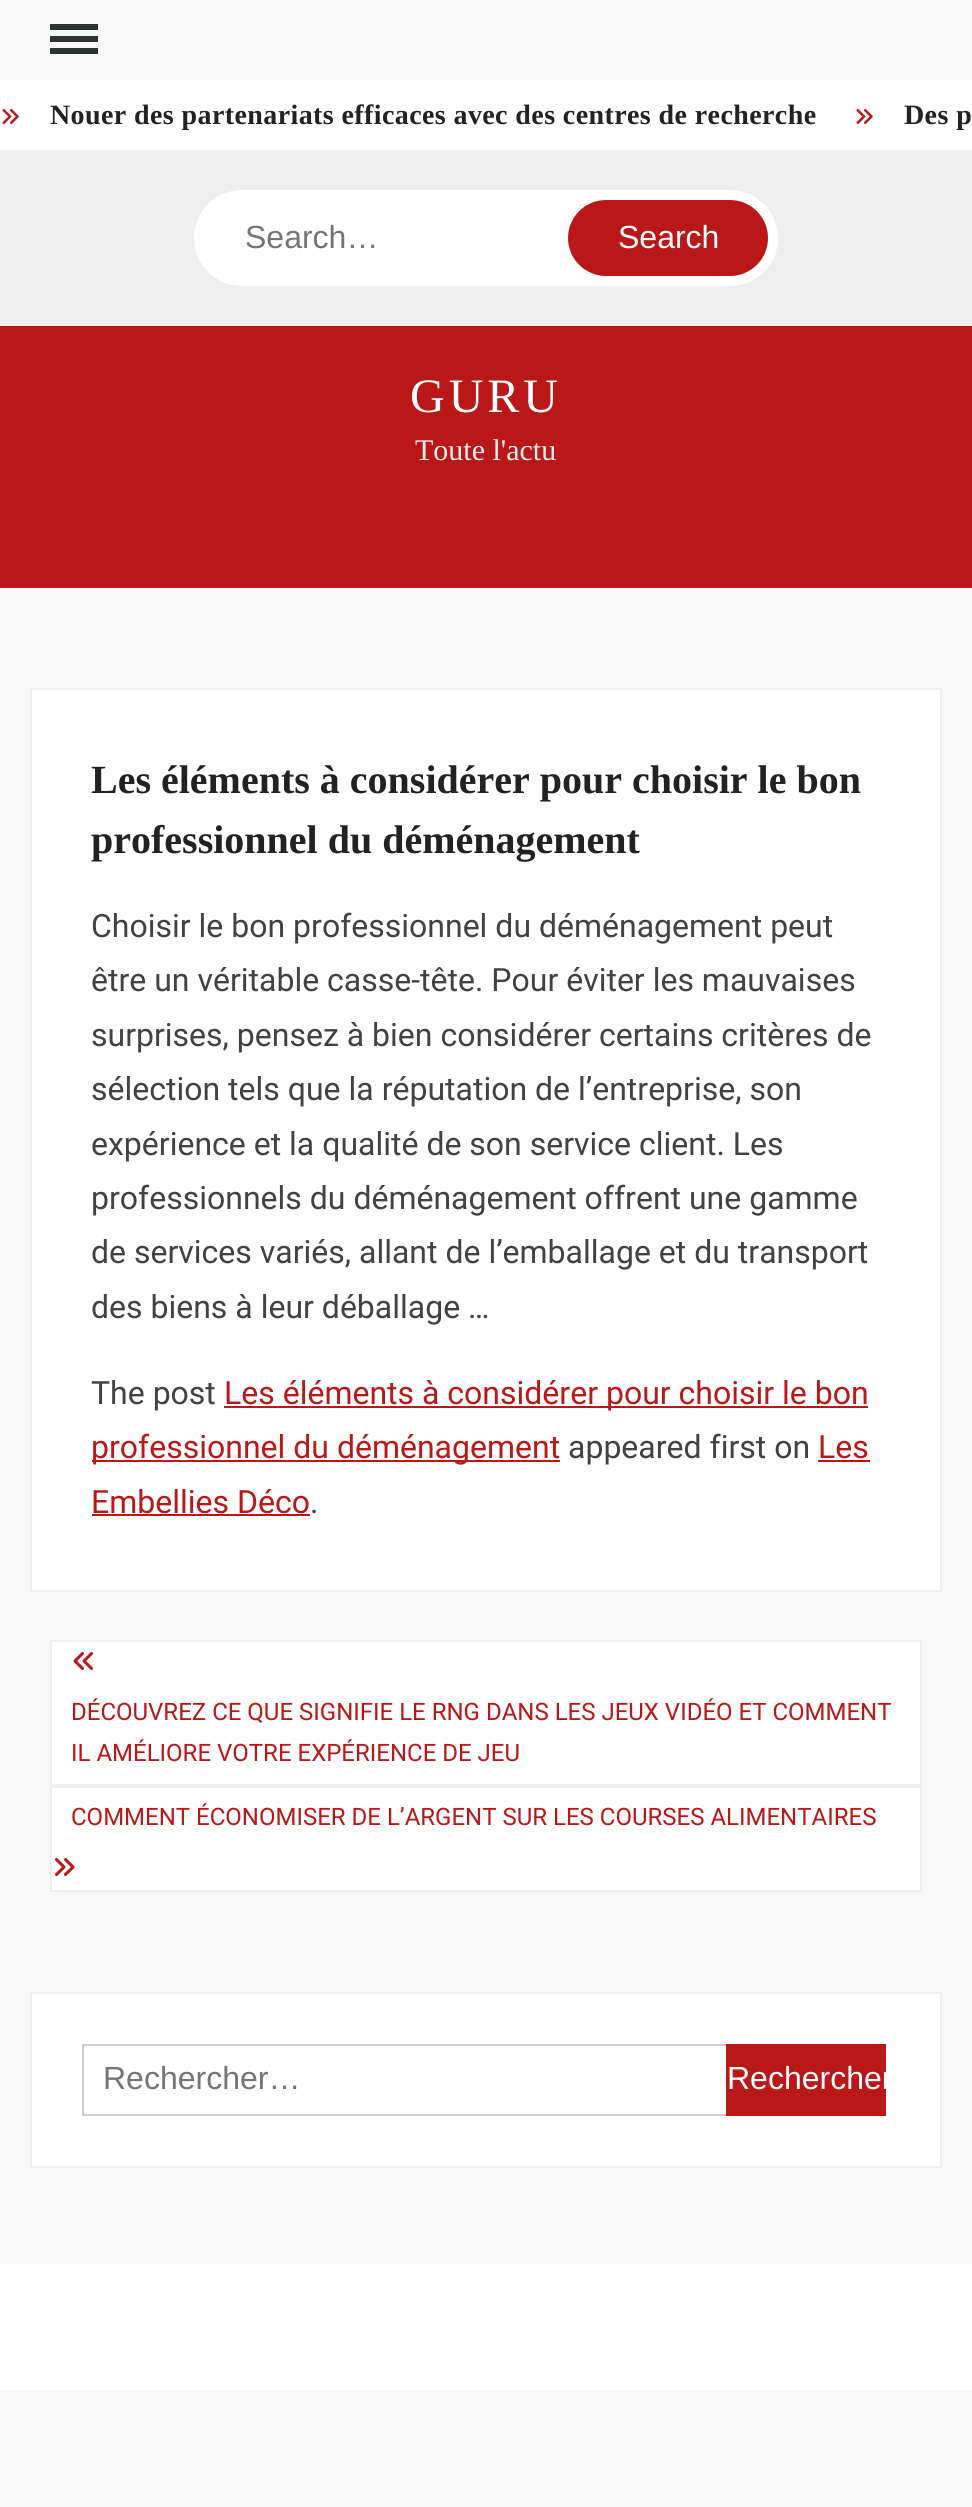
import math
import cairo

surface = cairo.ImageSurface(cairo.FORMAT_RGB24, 972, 2507)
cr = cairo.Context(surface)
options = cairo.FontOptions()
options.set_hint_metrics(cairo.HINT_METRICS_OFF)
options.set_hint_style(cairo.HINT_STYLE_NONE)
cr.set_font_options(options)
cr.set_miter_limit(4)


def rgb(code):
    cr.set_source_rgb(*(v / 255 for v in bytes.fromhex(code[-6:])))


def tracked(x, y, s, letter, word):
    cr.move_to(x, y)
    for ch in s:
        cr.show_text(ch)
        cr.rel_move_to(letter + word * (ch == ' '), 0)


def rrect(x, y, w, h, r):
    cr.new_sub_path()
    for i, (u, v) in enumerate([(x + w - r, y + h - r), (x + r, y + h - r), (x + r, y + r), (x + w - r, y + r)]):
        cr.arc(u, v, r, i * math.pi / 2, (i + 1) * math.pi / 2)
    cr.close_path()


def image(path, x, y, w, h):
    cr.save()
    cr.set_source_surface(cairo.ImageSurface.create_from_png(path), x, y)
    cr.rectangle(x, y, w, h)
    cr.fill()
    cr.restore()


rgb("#f8f8f8")
cr.paint()
for x, y, w, h, color in [
    (50, 36, 48, 6, "#2e3233"),
    (50, 24, 48, 6, "#2e3233"),
    (50, 48, 48, 6, "#2e3233"),
    (0, 80, 972, 70, "#ffffff"),
]:
    rgb(color)
    cr.rectangle(x, y, w, h)
    cr.fill()
image("img/1.png", 2, 109, 17, 15)
image("img/1.png", 856, 109, 17, 15)
rgb("#eeeeee")
cr.rectangle(0, 150, 972, 176)
cr.fill()
rgb("#ffffff")
rrect(194, 190, 584, 96, 48)
cr.fill()
rgb("#ba1818")
rrect(568, 200, 200, 76, 38)
cr.fill()
cr.rectangle(0, 326, 972, 262)
cr.fill()
rgb("#ffffff")
cr.rectangle(31, 689, 910, 902)
cr.fill_preserve()
rgb("#eeeeee")
cr.stroke()
for x, y, w, h, color in [
    (224, 1406, 644, 2, "#ba1818"),
    (92, 1460, 468, 2, "#ba1818"),
    (818, 1460, 52, 2, "#ba1818"),
    (92, 1514, 218, 2, "#ba1818"),
]:
    rgb(color)
    cr.rectangle(x, y, w, h)
    cr.fill()
rgb("#ffffff")
cr.rectangle(51, 1641, 870, 144)
cr.fill_preserve()
rgb("#eeeeee")
cr.stroke()
image("img/2.png", 73, 1652, 20, 18)
rgb("#ffffff")
cr.rectangle(51, 1787, 870, 104)
cr.fill_preserve()
rgb("#eeeeee")
cr.stroke()
image("img/3.png", 55, 1858, 20, 18)
rgb("#ffffff")
cr.rectangle(31, 1993, 910, 174)
cr.fill_preserve()
rgb("#eeeeee")
cr.stroke()
cr.rectangle(83, 2045, 644, 70)
rgb("#cccccc")
cr.stroke()
rgb("#ba1818")
cr.rectangle(726, 2044, 160, 72)
cr.fill()
rgb("#ffffff")
cr.rectangle(0, 2264, 972, 126)
cr.fill()
cr.select_font_face("Liberation Serif", cairo.FONT_SLANT_NORMAL, cairo.FONT_WEIGHT_BOLD)
cr.set_font_size(28)
rgb("#222222")
tracked(50, 124, "Nouer des partenariats efficaces avec des centres de recherche", 0.4, 0)
tracked(904, 124, "Des p", 0.4, 0)
cr.select_font_face("Liberation Sans")
cr.set_font_size(32)
rgb("#757575")
cr.move_to(245, 248)
cr.show_text("Search…")
rgb("#ffffff")
cr.move_to(618, 248)
cr.show_text("Search")
cr.select_font_face("Liberation Serif")
cr.set_font_size(48)
tracked(410, 412, "GURU", 4, 0)
cr.set_font_size(30)
rgb("#eeeeee")
cr.move_to(415, 460)
cr.show_text("Toute l'actu")
cr.select_font_face("Liberation Serif", cairo.FONT_SLANT_NORMAL, cairo.FONT_WEIGHT_BOLD)
cr.set_font_size(40)
rgb("#222222")
cr.move_to(91, 793)
cr.show_text("Les éléments à considérer pour choisir le bon")
cr.move_to(91, 853)
cr.show_text("professionnel du déménagement")
cr.select_font_face("Roboto")
cr.set_font_size(32)
rgb("#424242")
for x, y, s in [
    (91, 937, "Choisir le bon professionnel du déménagement peut"),
    (91, 991, "être un véritable casse-tête. Pour éviter les mauvaises"),
    (91, 1046, "surprises, pensez à bien considérer certains critères de"),
    (91, 1100, "sélection tels que la réputation de l’entreprise, son"),
    (91, 1155, "expérience et la qualité de son service client. Les"),
    (91, 1209, "professionnels du déménagement offrent une gamme"),
    (91, 1263, "de services variés, allant de l’emballage et du transport"),
    (91, 1318, "des biens à leur déballage …"),
    (91, 1404, "The post"),
]:
    cr.move_to(x, y)
    cr.show_text(s)
rgb("#ba1818")
cr.move_to(224, 1404)
cr.show_text("Les éléments à considérer pour choisir le bon")
cr.move_to(91, 1458)
cr.show_text("professionnel du déménagement")
rgb("#424242")
cr.move_to(568, 1458)
cr.show_text("appeared first on")
rgb("#ba1818")
cr.move_to(818, 1458)
cr.show_text("Les")
cr.move_to(91, 1513)
cr.show_text("Embellies Déco")
rgb("#424242")
cr.move_to(310, 1513)
cr.show_text(".")
cr.set_font_size(24)
rgb("#ba1818")
for x, y, s in [
    (71, 1720, "DÉCOUVREZ CE QUE SIGNIFIE LE RNG DANS LES JEUX VIDÉO ET COMMENT"),
    (71, 1761, "IL AMÉLIORE VOTRE EXPÉRIENCE DE JEU"),
    (71, 1825, "COMMENT ÉCONOMISER DE L’ARGENT SUR LES COURSES ALIMENTAIRES"),
]:
    cr.move_to(x, y)
    cr.show_text(s)
cr.select_font_face("Liberation Sans")
cr.set_font_size(32)
rgb("#757575")
cr.move_to(103, 2089)
cr.show_text("Rechercher…")
cr.save()
cr.rectangle(726, 2044, 160, 72)
cr.clip()
rgb("#ffffff")
cr.move_to(727, 2089)
cr.show_text("Rechercher")
cr.restore()
surface.write_to_png("page.png")
